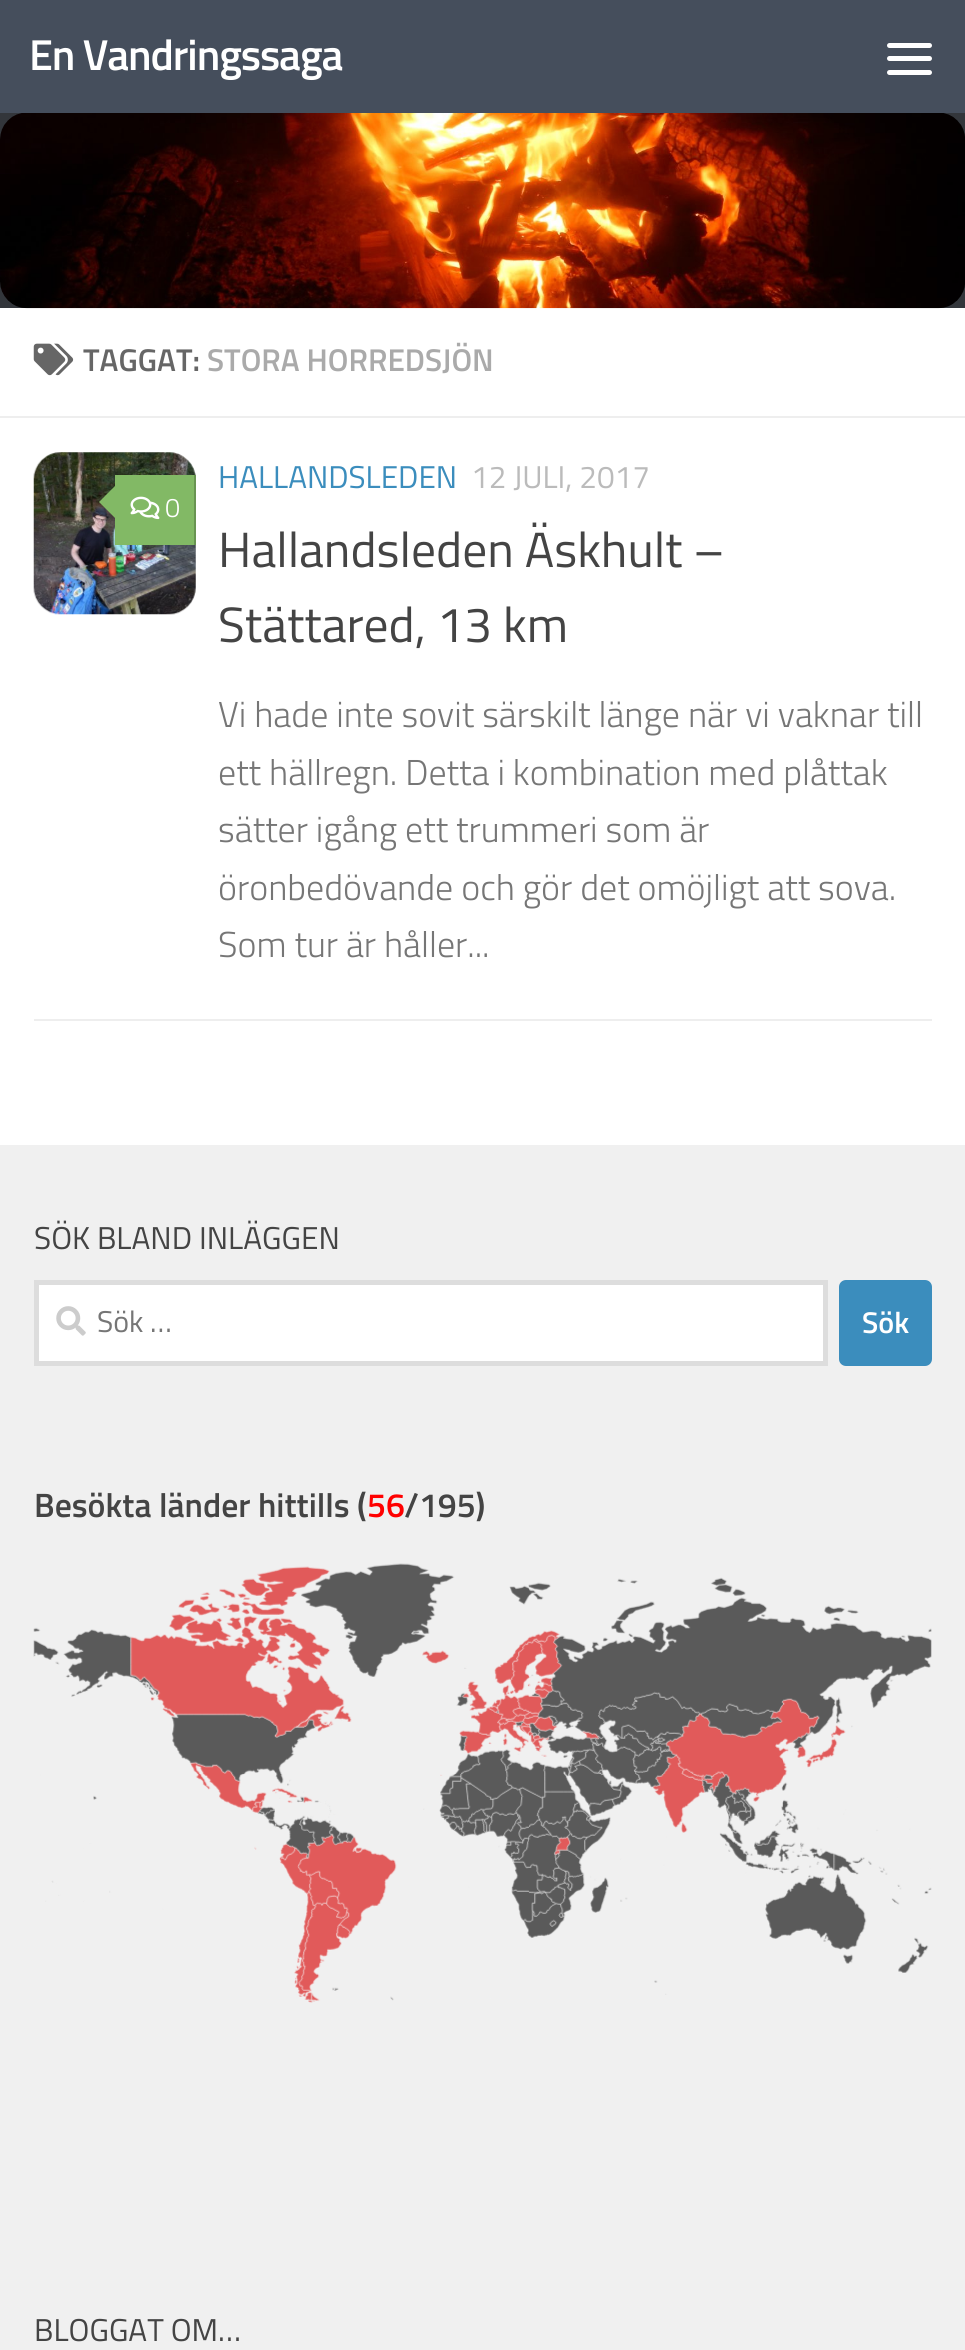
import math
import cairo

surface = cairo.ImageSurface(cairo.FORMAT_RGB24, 965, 2350)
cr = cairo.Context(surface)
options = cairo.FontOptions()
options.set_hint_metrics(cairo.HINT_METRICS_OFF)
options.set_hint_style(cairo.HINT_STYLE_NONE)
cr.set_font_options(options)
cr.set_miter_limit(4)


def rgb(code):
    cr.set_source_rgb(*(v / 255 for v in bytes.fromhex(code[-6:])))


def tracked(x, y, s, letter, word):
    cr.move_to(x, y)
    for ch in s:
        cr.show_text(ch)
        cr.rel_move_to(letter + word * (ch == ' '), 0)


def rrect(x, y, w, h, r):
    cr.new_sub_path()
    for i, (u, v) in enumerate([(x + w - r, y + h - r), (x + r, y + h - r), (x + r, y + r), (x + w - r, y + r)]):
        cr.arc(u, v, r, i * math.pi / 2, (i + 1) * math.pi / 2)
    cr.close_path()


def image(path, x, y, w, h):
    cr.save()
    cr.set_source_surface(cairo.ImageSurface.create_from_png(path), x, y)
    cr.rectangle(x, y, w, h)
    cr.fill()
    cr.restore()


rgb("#ffffff")
cr.paint()
rgb("#33363b")
cr.rectangle(0, 113, 965, 195)
cr.fill()
rgb("#454e5c")
cr.rectangle(0, 0, 965, 113)
cr.fill()
rgb("#ffffff")
rrect(887, 43, 45, 5, 2.5)
cr.fill()
rrect(887, 56, 45, 5, 2.5)
cr.fill()
rrect(887, 70, 45, 5, 2.5)
cr.fill()
image("img/1.png", 0, 113, 965, 196)
rgb("#eeeeee")
cr.rectangle(0, 416, 965, 2)
cr.fill()
image("img/2.png", 33, 343, 41, 33)
cr.rectangle(34, 1019, 898, 2)
cr.fill()
image("img/3.png", 33, 452, 163, 163)
rgb("#82b965")
cr.rectangle(115, 475, 79, 70)
cr.fill()
rgb("#689451")
cr.rectangle(194, 475, 2, 70)
cr.fill()
rgb("#82b965")
cr.new_path()
cr.move_to(119, 482)
cr.line_to(119, 522)
cr.line_to(99, 502)
cr.close_path()
cr.fill()
image("img/4.png", 130, 496, 30, 24)
rgb("#f0f0f0")
cr.rectangle(0, 1145, 965, 1205)
cr.fill()
rgb("#ffffff")
cr.rectangle(36.5, 1282.5, 789, 81)
cr.fill_preserve()
rgb("#dddddd")
cr.set_line_width(5)
cr.stroke()
image("img/5.png", 56, 1306, 30, 30)
rgb("#3b8dbd")
rrect(839, 1280, 93, 86, 7)
cr.fill()
image("img/6.png", 33, 1563, 899, 440)
cr.select_font_face("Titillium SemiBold")
cr.set_font_size(43.25)
rgb("#ffffff")
tracked(29, 70, "En Vandringssaga", -1.1, 0)
cr.set_font_size(31.5)
rgb("#666666")
cr.move_to(83, 371)
cr.show_text("TAGGAT:")
rgb("#aaaaaa")
cr.move_to(207, 371)
cr.show_text("STORA HORREDSJÖN")
cr.select_font_face("Titillium Light")
cr.set_font_size(27)
rgb("#ffffff")
cr.move_to(165, 517)
cr.show_text("0")
cr.select_font_face("Titillium")
cr.set_font_size(31.5)
rgb("#3b8dbd")
cr.move_to(218, 488)
cr.show_text("HALLANDSLEDEN")
rgb("#bbbbbb")
cr.move_to(471, 488)
cr.show_text("12 JULI, 2017")
cr.set_font_size(49.5)
rgb("#444444")
cr.move_to(218, 567)
cr.show_text("Hallandsleden Äskhult –")
cr.move_to(218, 642)
cr.show_text("Stättared, 13 km")
cr.select_font_face("Titillium Light")
cr.set_font_size(36)
rgb("#767676")
for x, y, s in [
    (218, 727, "Vi hade inte sovit särskilt länge när vi vaknar till"),
    (218, 785, "ett hällregn. Detta i kombination med plåttak"),
    (218, 842, "sätter igång ett trummeri som är"),
    (218, 900, "öronbedövande och gör det omöjligt att sova."),
    (218, 957, "Som tur är håller..."),
]:
    cr.move_to(x, y)
    cr.show_text(s)
cr.select_font_face("Titillium")
cr.set_font_size(31.6)
rgb("#444444")
cr.move_to(34, 1249)
cr.show_text("SÖK BLAND INLÄGGEN")
cr.set_font_size(30)
rgb("#767676")
cr.move_to(97, 1332)
cr.show_text("Sök …")
cr.select_font_face("Titillium SemiBold")
rgb("#ffffff")
cr.move_to(862, 1333)
cr.show_text("Sök")
cr.set_font_size(33.75)
rgb("#444444")
cr.move_to(34, 1517)
cr.show_text("Besökta länder hittills (")
rgb("#ff0000")
cr.move_to(367, 1517)
cr.show_text("56")
rgb("#444444")
cr.move_to(404, 1517)
cr.show_text("/195)")
cr.select_font_face("Titillium")
cr.set_font_size(31.6)
cr.move_to(34, 2341)
cr.show_text("BLOGGAT OM…")
surface.write_to_png("page.png")
